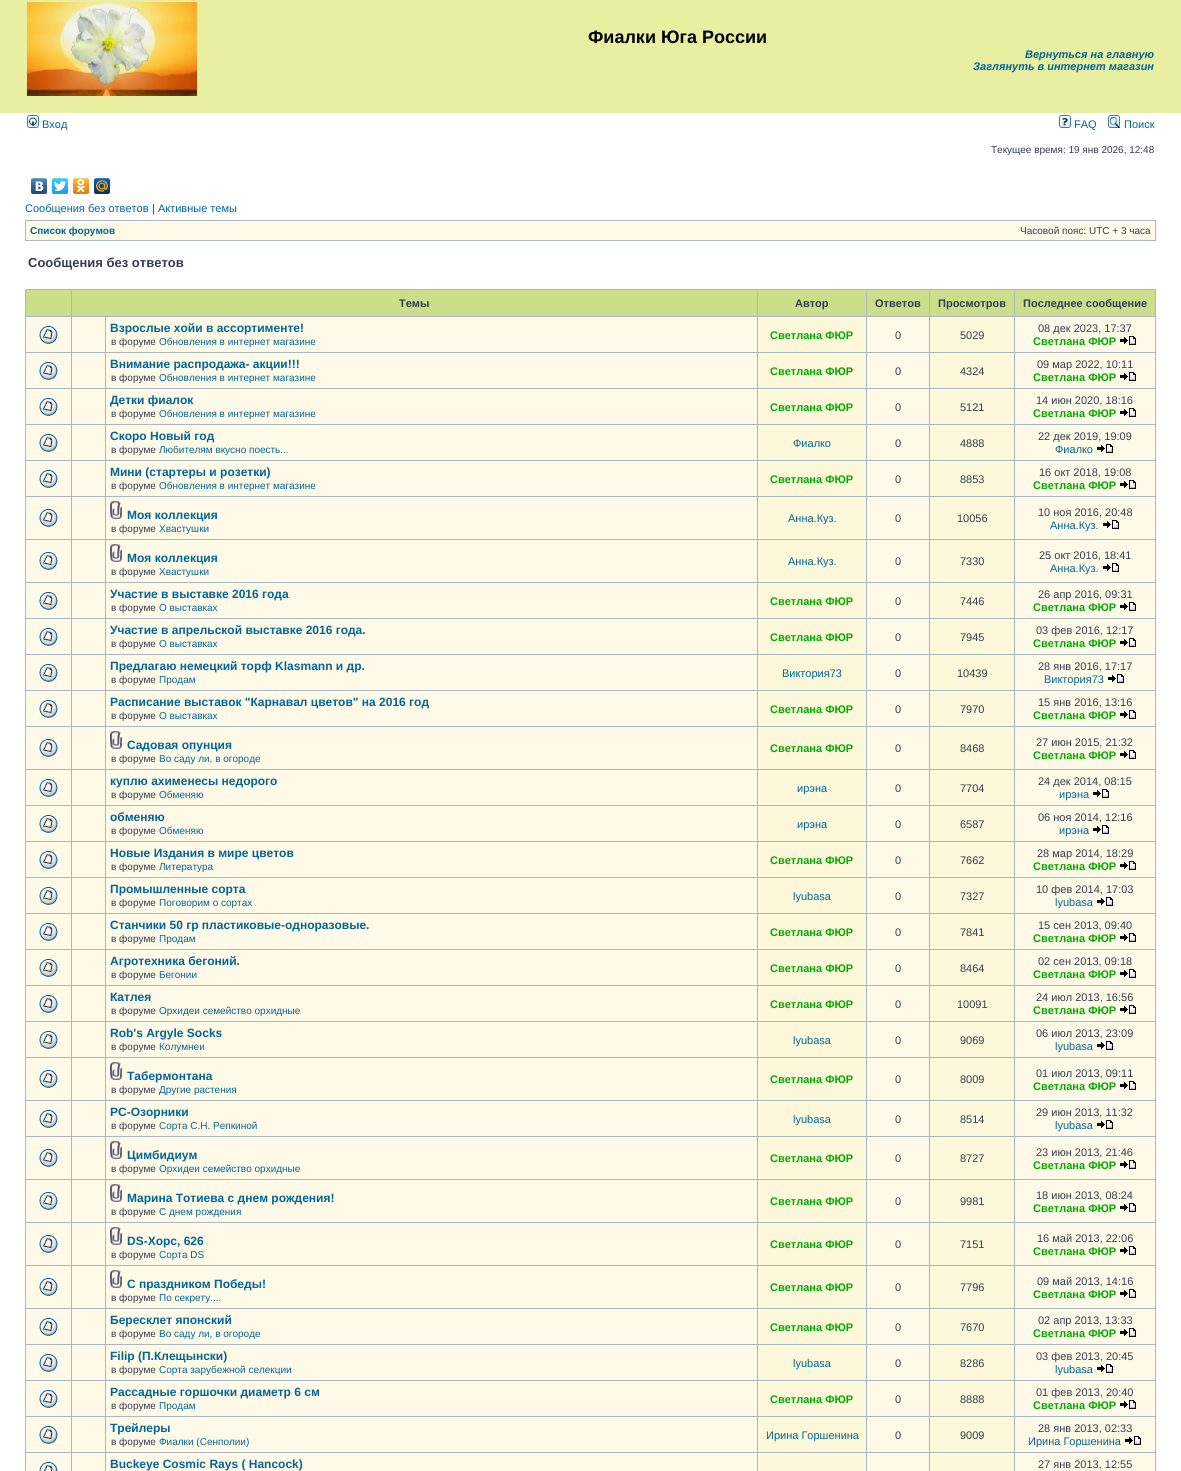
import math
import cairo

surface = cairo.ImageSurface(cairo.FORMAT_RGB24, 1181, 1471)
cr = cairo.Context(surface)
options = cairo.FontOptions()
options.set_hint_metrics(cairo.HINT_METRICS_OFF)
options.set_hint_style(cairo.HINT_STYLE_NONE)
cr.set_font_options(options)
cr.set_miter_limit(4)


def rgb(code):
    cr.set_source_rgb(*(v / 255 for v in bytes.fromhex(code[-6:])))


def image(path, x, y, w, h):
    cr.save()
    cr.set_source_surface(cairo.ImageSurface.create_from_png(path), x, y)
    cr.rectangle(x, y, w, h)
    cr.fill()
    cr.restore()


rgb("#ffffff")
cr.paint()
rgb("#e9efa1")
cr.rectangle(0, 0, 1181, 113)
cr.fill()
image("img/1.png", 27, 2, 170, 94)
image("img/2.png", 27, 115, 12, 13)
image("img/3.png", 1059, 115, 12, 13)
image("img/4.png", 1108, 115, 12, 13)
image("img/5.png", 31, 178, 16, 16)
image("img/6.png", 52, 178, 16, 16)
image("img/7.png", 73, 178, 16, 16)
image("img/8.png", 94, 178, 16, 16)
for x, y, w, h, color in [
    (25, 220, 1131, 21, "#a9b8c2"),
    (26, 221, 1129, 19, "#fffae7"),
    (25, 289, 1131, 1182, "#a9b8c2"),
    (26, 290, 45, 26, "#cbde8a"),
    (72, 290, 685, 26, "#cbde8a"),
    (758, 290, 108, 26, "#cbde8a"),
    (867, 290, 62, 26, "#cbde8a"),
    (930, 290, 84, 26, "#cbde8a"),
    (1015, 290, 140, 26, "#cbde8a"),
    (26, 317, 45, 35, "#fffae7"),
]:
    rgb(color)
    cr.rectangle(x, y, w, h)
    cr.fill()
image("img/9.png", 39, 326, 19, 18)
for x, y, w, h, color in [
    (72, 317, 33, 35, "#fffae7"),
    (106, 317, 651, 35, "#fffae7"),
    (758, 317, 108, 35, "#fdf8da"),
    (867, 317, 62, 35, "#fffae7"),
    (930, 317, 84, 35, "#fdf8da"),
    (1015, 317, 140, 35, "#fffae7"),
]:
    rgb(color)
    cr.rectangle(x, y, w, h)
    cr.fill()
image("img/10.png", 1120, 336, 16, 9)
cr.rectangle(26, 353, 45, 35)
cr.fill()
image("img/9.png", 39, 362, 19, 18)
for x, y, w, h, color in [
    (72, 353, 33, 35, "#fffae7"),
    (106, 353, 651, 35, "#fffae7"),
    (758, 353, 108, 35, "#fdf8da"),
    (867, 353, 62, 35, "#fffae7"),
    (930, 353, 84, 35, "#fdf8da"),
    (1015, 353, 140, 35, "#fffae7"),
]:
    rgb(color)
    cr.rectangle(x, y, w, h)
    cr.fill()
image("img/10.png", 1120, 372, 16, 9)
cr.rectangle(26, 389, 45, 35)
cr.fill()
image("img/9.png", 39, 398, 19, 18)
for x, y, w, h, color in [
    (72, 389, 33, 35, "#fffae7"),
    (106, 389, 651, 35, "#fffae7"),
    (758, 389, 108, 35, "#fdf8da"),
    (867, 389, 62, 35, "#fffae7"),
    (930, 389, 84, 35, "#fdf8da"),
    (1015, 389, 140, 35, "#fffae7"),
]:
    rgb(color)
    cr.rectangle(x, y, w, h)
    cr.fill()
image("img/10.png", 1120, 408, 16, 9)
cr.rectangle(26, 425, 45, 35)
cr.fill()
image("img/9.png", 39, 434, 19, 18)
for x, y, w, h, color in [
    (72, 425, 33, 35, "#fffae7"),
    (106, 425, 651, 35, "#fffae7"),
    (758, 425, 108, 35, "#fdf8da"),
    (867, 425, 62, 35, "#fffae7"),
    (930, 425, 84, 35, "#fdf8da"),
    (1015, 425, 140, 35, "#fffae7"),
]:
    rgb(color)
    cr.rectangle(x, y, w, h)
    cr.fill()
image("img/10.png", 1097, 444, 16, 9)
cr.rectangle(26, 461, 45, 35)
cr.fill()
image("img/9.png", 39, 470, 19, 18)
for x, y, w, h, color in [
    (72, 461, 33, 35, "#fffae7"),
    (106, 461, 651, 35, "#fffae7"),
    (758, 461, 108, 35, "#fdf8da"),
    (867, 461, 62, 35, "#fffae7"),
    (930, 461, 84, 35, "#fdf8da"),
    (1015, 461, 140, 35, "#fffae7"),
]:
    rgb(color)
    cr.rectangle(x, y, w, h)
    cr.fill()
image("img/10.png", 1120, 480, 16, 9)
cr.rectangle(26, 497, 45, 42)
cr.fill()
image("img/9.png", 39, 509, 19, 18)
cr.rectangle(72, 497, 33, 42)
cr.fill()
cr.rectangle(106, 497, 651, 42)
cr.fill()
image("img/11.png", 110, 501, 12, 18)
for x, y, w, h, color in [
    (758, 497, 108, 42, "#fdf8da"),
    (867, 497, 62, 42, "#fffae7"),
    (930, 497, 84, 42, "#fdf8da"),
    (1015, 497, 140, 42, "#fffae7"),
]:
    rgb(color)
    cr.rectangle(x, y, w, h)
    cr.fill()
image("img/10.png", 1103, 520, 16, 9)
cr.rectangle(26, 540, 45, 42)
cr.fill()
image("img/9.png", 39, 552, 19, 18)
cr.rectangle(72, 540, 33, 42)
cr.fill()
cr.rectangle(106, 540, 651, 42)
cr.fill()
image("img/11.png", 110, 544, 12, 18)
for x, y, w, h, color in [
    (758, 540, 108, 42, "#fdf8da"),
    (867, 540, 62, 42, "#fffae7"),
    (930, 540, 84, 42, "#fdf8da"),
    (1015, 540, 140, 42, "#fffae7"),
]:
    rgb(color)
    cr.rectangle(x, y, w, h)
    cr.fill()
image("img/10.png", 1103, 563, 16, 9)
cr.rectangle(26, 583, 45, 35)
cr.fill()
image("img/9.png", 39, 592, 19, 18)
for x, y, w, h, color in [
    (72, 583, 33, 35, "#fffae7"),
    (106, 583, 651, 35, "#fffae7"),
    (758, 583, 108, 35, "#fdf8da"),
    (867, 583, 62, 35, "#fffae7"),
    (930, 583, 84, 35, "#fdf8da"),
    (1015, 583, 140, 35, "#fffae7"),
]:
    rgb(color)
    cr.rectangle(x, y, w, h)
    cr.fill()
image("img/10.png", 1120, 602, 16, 9)
cr.rectangle(26, 619, 45, 35)
cr.fill()
image("img/9.png", 39, 628, 19, 18)
for x, y, w, h, color in [
    (72, 619, 33, 35, "#fffae7"),
    (106, 619, 651, 35, "#fffae7"),
    (758, 619, 108, 35, "#fdf8da"),
    (867, 619, 62, 35, "#fffae7"),
    (930, 619, 84, 35, "#fdf8da"),
    (1015, 619, 140, 35, "#fffae7"),
]:
    rgb(color)
    cr.rectangle(x, y, w, h)
    cr.fill()
image("img/10.png", 1120, 638, 16, 9)
cr.rectangle(26, 655, 45, 35)
cr.fill()
image("img/9.png", 39, 664, 19, 18)
for x, y, w, h, color in [
    (72, 655, 33, 35, "#fffae7"),
    (106, 655, 651, 35, "#fffae7"),
    (758, 655, 108, 35, "#fdf8da"),
    (867, 655, 62, 35, "#fffae7"),
    (930, 655, 84, 35, "#fdf8da"),
    (1015, 655, 140, 35, "#fffae7"),
]:
    rgb(color)
    cr.rectangle(x, y, w, h)
    cr.fill()
image("img/10.png", 1108, 674, 16, 9)
cr.rectangle(26, 691, 45, 35)
cr.fill()
image("img/9.png", 39, 700, 19, 18)
for x, y, w, h, color in [
    (72, 691, 33, 35, "#fffae7"),
    (106, 691, 651, 35, "#fffae7"),
    (758, 691, 108, 35, "#fdf8da"),
    (867, 691, 62, 35, "#fffae7"),
    (930, 691, 84, 35, "#fdf8da"),
    (1015, 691, 140, 35, "#fffae7"),
]:
    rgb(color)
    cr.rectangle(x, y, w, h)
    cr.fill()
image("img/10.png", 1120, 710, 16, 9)
cr.rectangle(26, 727, 45, 42)
cr.fill()
image("img/9.png", 39, 739, 19, 18)
cr.rectangle(72, 727, 33, 42)
cr.fill()
cr.rectangle(106, 727, 651, 42)
cr.fill()
image("img/11.png", 110, 731, 12, 18)
for x, y, w, h, color in [
    (758, 727, 108, 42, "#fdf8da"),
    (867, 727, 62, 42, "#fffae7"),
    (930, 727, 84, 42, "#fdf8da"),
    (1015, 727, 140, 42, "#fffae7"),
]:
    rgb(color)
    cr.rectangle(x, y, w, h)
    cr.fill()
image("img/10.png", 1120, 750, 16, 9)
cr.rectangle(26, 770, 45, 35)
cr.fill()
image("img/9.png", 39, 779, 19, 18)
for x, y, w, h, color in [
    (72, 770, 33, 35, "#fffae7"),
    (106, 770, 651, 35, "#fffae7"),
    (758, 770, 108, 35, "#fdf8da"),
    (867, 770, 62, 35, "#fffae7"),
    (930, 770, 84, 35, "#fdf8da"),
    (1015, 770, 140, 35, "#fffae7"),
]:
    rgb(color)
    cr.rectangle(x, y, w, h)
    cr.fill()
image("img/10.png", 1093, 789, 16, 9)
cr.rectangle(26, 806, 45, 35)
cr.fill()
image("img/9.png", 39, 815, 19, 18)
for x, y, w, h, color in [
    (72, 806, 33, 35, "#fffae7"),
    (106, 806, 651, 35, "#fffae7"),
    (758, 806, 108, 35, "#fdf8da"),
    (867, 806, 62, 35, "#fffae7"),
    (930, 806, 84, 35, "#fdf8da"),
    (1015, 806, 140, 35, "#fffae7"),
]:
    rgb(color)
    cr.rectangle(x, y, w, h)
    cr.fill()
image("img/10.png", 1093, 825, 16, 9)
cr.rectangle(26, 842, 45, 35)
cr.fill()
image("img/9.png", 39, 851, 19, 18)
for x, y, w, h, color in [
    (72, 842, 33, 35, "#fffae7"),
    (106, 842, 651, 35, "#fffae7"),
    (758, 842, 108, 35, "#fdf8da"),
    (867, 842, 62, 35, "#fffae7"),
    (930, 842, 84, 35, "#fdf8da"),
    (1015, 842, 140, 35, "#fffae7"),
]:
    rgb(color)
    cr.rectangle(x, y, w, h)
    cr.fill()
image("img/10.png", 1120, 861, 16, 9)
cr.rectangle(26, 878, 45, 35)
cr.fill()
image("img/9.png", 39, 887, 19, 18)
for x, y, w, h, color in [
    (72, 878, 33, 35, "#fffae7"),
    (106, 878, 651, 35, "#fffae7"),
    (758, 878, 108, 35, "#fdf8da"),
    (867, 878, 62, 35, "#fffae7"),
    (930, 878, 84, 35, "#fdf8da"),
    (1015, 878, 140, 35, "#fffae7"),
]:
    rgb(color)
    cr.rectangle(x, y, w, h)
    cr.fill()
image("img/10.png", 1097, 897, 16, 9)
cr.rectangle(26, 914, 45, 35)
cr.fill()
image("img/9.png", 39, 923, 19, 18)
for x, y, w, h, color in [
    (72, 914, 33, 35, "#fffae7"),
    (106, 914, 651, 35, "#fffae7"),
    (758, 914, 108, 35, "#fdf8da"),
    (867, 914, 62, 35, "#fffae7"),
    (930, 914, 84, 35, "#fdf8da"),
    (1015, 914, 140, 35, "#fffae7"),
]:
    rgb(color)
    cr.rectangle(x, y, w, h)
    cr.fill()
image("img/10.png", 1120, 933, 16, 9)
cr.rectangle(26, 950, 45, 35)
cr.fill()
image("img/9.png", 39, 959, 19, 18)
for x, y, w, h, color in [
    (72, 950, 33, 35, "#fffae7"),
    (106, 950, 651, 35, "#fffae7"),
    (758, 950, 108, 35, "#fdf8da"),
    (867, 950, 62, 35, "#fffae7"),
    (930, 950, 84, 35, "#fdf8da"),
    (1015, 950, 140, 35, "#fffae7"),
]:
    rgb(color)
    cr.rectangle(x, y, w, h)
    cr.fill()
image("img/10.png", 1120, 969, 16, 9)
cr.rectangle(26, 986, 45, 35)
cr.fill()
image("img/9.png", 39, 995, 19, 18)
for x, y, w, h, color in [
    (72, 986, 33, 35, "#fffae7"),
    (106, 986, 651, 35, "#fffae7"),
    (758, 986, 108, 35, "#fdf8da"),
    (867, 986, 62, 35, "#fffae7"),
    (930, 986, 84, 35, "#fdf8da"),
    (1015, 986, 140, 35, "#fffae7"),
]:
    rgb(color)
    cr.rectangle(x, y, w, h)
    cr.fill()
image("img/10.png", 1120, 1005, 16, 9)
cr.rectangle(26, 1022, 45, 35)
cr.fill()
image("img/9.png", 39, 1031, 19, 18)
for x, y, w, h, color in [
    (72, 1022, 33, 35, "#fffae7"),
    (106, 1022, 651, 35, "#fffae7"),
    (758, 1022, 108, 35, "#fdf8da"),
    (867, 1022, 62, 35, "#fffae7"),
    (930, 1022, 84, 35, "#fdf8da"),
    (1015, 1022, 140, 35, "#fffae7"),
]:
    rgb(color)
    cr.rectangle(x, y, w, h)
    cr.fill()
image("img/10.png", 1097, 1041, 16, 9)
cr.rectangle(26, 1058, 45, 42)
cr.fill()
image("img/9.png", 39, 1070, 19, 18)
cr.rectangle(72, 1058, 33, 42)
cr.fill()
cr.rectangle(106, 1058, 651, 42)
cr.fill()
image("img/11.png", 110, 1062, 12, 18)
for x, y, w, h, color in [
    (758, 1058, 108, 42, "#fdf8da"),
    (867, 1058, 62, 42, "#fffae7"),
    (930, 1058, 84, 42, "#fdf8da"),
    (1015, 1058, 140, 42, "#fffae7"),
]:
    rgb(color)
    cr.rectangle(x, y, w, h)
    cr.fill()
image("img/10.png", 1120, 1081, 16, 9)
cr.rectangle(26, 1101, 45, 35)
cr.fill()
image("img/9.png", 39, 1110, 19, 18)
for x, y, w, h, color in [
    (72, 1101, 33, 35, "#fffae7"),
    (106, 1101, 651, 35, "#fffae7"),
    (758, 1101, 108, 35, "#fdf8da"),
    (867, 1101, 62, 35, "#fffae7"),
    (930, 1101, 84, 35, "#fdf8da"),
    (1015, 1101, 140, 35, "#fffae7"),
]:
    rgb(color)
    cr.rectangle(x, y, w, h)
    cr.fill()
image("img/10.png", 1097, 1120, 16, 9)
cr.rectangle(26, 1137, 45, 42)
cr.fill()
image("img/9.png", 39, 1149, 19, 18)
cr.rectangle(72, 1137, 33, 42)
cr.fill()
cr.rectangle(106, 1137, 651, 42)
cr.fill()
image("img/11.png", 110, 1141, 12, 18)
for x, y, w, h, color in [
    (758, 1137, 108, 42, "#fdf8da"),
    (867, 1137, 62, 42, "#fffae7"),
    (930, 1137, 84, 42, "#fdf8da"),
    (1015, 1137, 140, 42, "#fffae7"),
]:
    rgb(color)
    cr.rectangle(x, y, w, h)
    cr.fill()
image("img/10.png", 1120, 1160, 16, 9)
cr.rectangle(26, 1180, 45, 42)
cr.fill()
image("img/9.png", 39, 1192, 19, 18)
cr.rectangle(72, 1180, 33, 42)
cr.fill()
cr.rectangle(106, 1180, 651, 42)
cr.fill()
image("img/11.png", 110, 1184, 12, 18)
for x, y, w, h, color in [
    (758, 1180, 108, 42, "#fdf8da"),
    (867, 1180, 62, 42, "#fffae7"),
    (930, 1180, 84, 42, "#fdf8da"),
    (1015, 1180, 140, 42, "#fffae7"),
]:
    rgb(color)
    cr.rectangle(x, y, w, h)
    cr.fill()
image("img/10.png", 1120, 1203, 16, 9)
cr.rectangle(26, 1223, 45, 42)
cr.fill()
image("img/9.png", 39, 1235, 19, 18)
cr.rectangle(72, 1223, 33, 42)
cr.fill()
cr.rectangle(106, 1223, 651, 42)
cr.fill()
image("img/11.png", 110, 1227, 12, 18)
for x, y, w, h, color in [
    (758, 1223, 108, 42, "#fdf8da"),
    (867, 1223, 62, 42, "#fffae7"),
    (930, 1223, 84, 42, "#fdf8da"),
    (1015, 1223, 140, 42, "#fffae7"),
]:
    rgb(color)
    cr.rectangle(x, y, w, h)
    cr.fill()
image("img/10.png", 1120, 1246, 16, 9)
cr.rectangle(26, 1266, 45, 42)
cr.fill()
image("img/9.png", 39, 1278, 19, 18)
cr.rectangle(72, 1266, 33, 42)
cr.fill()
cr.rectangle(106, 1266, 651, 42)
cr.fill()
image("img/11.png", 110, 1270, 12, 18)
for x, y, w, h, color in [
    (758, 1266, 108, 42, "#fdf8da"),
    (867, 1266, 62, 42, "#fffae7"),
    (930, 1266, 84, 42, "#fdf8da"),
    (1015, 1266, 140, 42, "#fffae7"),
]:
    rgb(color)
    cr.rectangle(x, y, w, h)
    cr.fill()
image("img/10.png", 1120, 1289, 16, 9)
cr.rectangle(26, 1309, 45, 35)
cr.fill()
image("img/9.png", 39, 1318, 19, 18)
for x, y, w, h, color in [
    (72, 1309, 33, 35, "#fffae7"),
    (106, 1309, 651, 35, "#fffae7"),
    (758, 1309, 108, 35, "#fdf8da"),
    (867, 1309, 62, 35, "#fffae7"),
    (930, 1309, 84, 35, "#fdf8da"),
    (1015, 1309, 140, 35, "#fffae7"),
]:
    rgb(color)
    cr.rectangle(x, y, w, h)
    cr.fill()
image("img/10.png", 1120, 1328, 16, 9)
cr.rectangle(26, 1345, 45, 35)
cr.fill()
image("img/9.png", 39, 1354, 19, 18)
for x, y, w, h, color in [
    (72, 1345, 33, 35, "#fffae7"),
    (106, 1345, 651, 35, "#fffae7"),
    (758, 1345, 108, 35, "#fdf8da"),
    (867, 1345, 62, 35, "#fffae7"),
    (930, 1345, 84, 35, "#fdf8da"),
    (1015, 1345, 140, 35, "#fffae7"),
]:
    rgb(color)
    cr.rectangle(x, y, w, h)
    cr.fill()
image("img/10.png", 1097, 1364, 16, 9)
cr.rectangle(26, 1381, 45, 35)
cr.fill()
image("img/9.png", 39, 1390, 19, 18)
for x, y, w, h, color in [
    (72, 1381, 33, 35, "#fffae7"),
    (106, 1381, 651, 35, "#fffae7"),
    (758, 1381, 108, 35, "#fdf8da"),
    (867, 1381, 62, 35, "#fffae7"),
    (930, 1381, 84, 35, "#fdf8da"),
    (1015, 1381, 140, 35, "#fffae7"),
]:
    rgb(color)
    cr.rectangle(x, y, w, h)
    cr.fill()
image("img/10.png", 1120, 1400, 16, 9)
cr.rectangle(26, 1417, 45, 35)
cr.fill()
image("img/9.png", 39, 1426, 19, 18)
for x, y, w, h, color in [
    (72, 1417, 33, 35, "#fffae7"),
    (106, 1417, 651, 35, "#fffae7"),
    (758, 1417, 108, 35, "#fdf8da"),
    (867, 1417, 62, 35, "#fffae7"),
    (930, 1417, 84, 35, "#fdf8da"),
    (1015, 1417, 140, 35, "#fffae7"),
]:
    rgb(color)
    cr.rectangle(x, y, w, h)
    cr.fill()
image("img/10.png", 1125, 1436, 16, 9)
cr.rectangle(26, 1453, 45, 18)
cr.fill()
image("img/12.png", 39, 1462, 19, 9)
for x, y, w, h, color in [
    (72, 1453, 33, 18, "#fffae7"),
    (106, 1453, 651, 18, "#fffae7"),
    (758, 1453, 108, 18, "#fdf8da"),
    (867, 1453, 62, 18, "#fffae7"),
    (930, 1453, 84, 18, "#fdf8da"),
    (1015, 1453, 140, 18, "#fffae7"),
]:
    rgb(color)
    cr.rectangle(x, y, w, h)
    cr.fill()
cr.select_font_face("Liberation Sans", cairo.FONT_SLANT_NORMAL, cairo.FONT_WEIGHT_BOLD)
cr.set_font_size(18)
rgb("#000000")
cr.move_to(588, 43)
cr.show_text("Фиалки Юга России")
cr.select_font_face("Liberation Sans", cairo.FONT_SLANT_ITALIC, cairo.FONT_WEIGHT_BOLD)
cr.set_font_size(11)
rgb("#006597")
cr.move_to(1025, 58)
cr.show_text("Вернуться на главную")
cr.move_to(973, 70)
cr.show_text("Заглянуть в интернет магазин")
cr.select_font_face("Liberation Sans")
for x, y, s in [
    (42, 128, "Вход"),
    (1074, 128, "FAQ"),
    (1124, 128, "Поиск"),
]:
    cr.move_to(x, y)
    cr.show_text(s)
cr.set_font_size(10)
rgb("#323d4f")
cr.move_to(991, 153)
cr.show_text("Текущее время: 19 янв 2026, 12:48")
cr.set_font_size(11)
rgb("#006597")
cr.move_to(25, 212)
cr.show_text("Сообщения без ответов")
rgb("#323d4f")
cr.move_to(152, 212)
cr.show_text("|")
rgb("#006597")
cr.move_to(158, 212)
cr.show_text("Активные темы")
cr.select_font_face("Liberation Sans", cairo.FONT_SLANT_NORMAL, cairo.FONT_WEIGHT_BOLD)
cr.set_font_size(10)
cr.move_to(30, 234)
cr.show_text("Список форумов")
cr.select_font_face("Liberation Sans")
rgb("#323d4f")
cr.move_to(1020, 234)
cr.show_text("Часовой пояс: UTC + 3 часа")
cr.select_font_face("Liberation Sans", cairo.FONT_SLANT_NORMAL, cairo.FONT_WEIGHT_BOLD)
cr.set_font_size(13)
cr.move_to(28, 267)
cr.show_text("Сообщения без ответов")
cr.set_font_size(11)
for x, y, s in [
    (399, 307, "Темы"),
    (795, 307, "Автор"),
    (875, 307, "Ответов"),
    (938, 307, "Просмотров"),
    (1023, 307, "Последнее сообщение"),
]:
    cr.move_to(x, y)
    cr.show_text(s)
cr.set_font_size(12)
rgb("#006597")
cr.move_to(110, 332)
cr.show_text("Взрослые хойи в ассортименте!")
cr.select_font_face("Liberation Sans")
cr.set_font_size(10)
rgb("#323d4f")
cr.move_to(111, 345)
cr.show_text("в форуме")
rgb("#006597")
cr.move_to(159, 345)
cr.show_text("Обновления в интернет магазине")
cr.select_font_face("Liberation Sans", cairo.FONT_SLANT_NORMAL, cairo.FONT_WEIGHT_BOLD)
cr.set_font_size(11)
rgb("#00aa00")
cr.move_to(770, 339)
cr.show_text("Светлана ФЮР")
cr.select_font_face("Liberation Sans")
rgb("#323d4f")
for x, y, s in [
    (895, 339, "0"),
    (960, 339, "5029"),
    (1038, 332, "08 дек 2023, 17:37"),
]:
    cr.move_to(x, y)
    cr.show_text(s)
cr.select_font_face("Liberation Sans", cairo.FONT_SLANT_NORMAL, cairo.FONT_WEIGHT_BOLD)
rgb("#00aa00")
cr.move_to(1033, 345)
cr.show_text("Светлана ФЮР")
cr.set_font_size(12)
rgb("#006597")
cr.move_to(110, 368)
cr.show_text("Внимание распродажа- акции!!!")
cr.select_font_face("Liberation Sans")
cr.set_font_size(10)
rgb("#323d4f")
cr.move_to(111, 381)
cr.show_text("в форуме")
rgb("#006597")
cr.move_to(159, 381)
cr.show_text("Обновления в интернет магазине")
cr.select_font_face("Liberation Sans", cairo.FONT_SLANT_NORMAL, cairo.FONT_WEIGHT_BOLD)
cr.set_font_size(11)
rgb("#00aa00")
cr.move_to(770, 375)
cr.show_text("Светлана ФЮР")
cr.select_font_face("Liberation Sans")
rgb("#323d4f")
for x, y, s in [
    (895, 375, "0"),
    (960, 375, "4324"),
    (1037, 368, "09 мар 2022, 10:11"),
]:
    cr.move_to(x, y)
    cr.show_text(s)
cr.select_font_face("Liberation Sans", cairo.FONT_SLANT_NORMAL, cairo.FONT_WEIGHT_BOLD)
rgb("#00aa00")
cr.move_to(1033, 381)
cr.show_text("Светлана ФЮР")
cr.set_font_size(12)
rgb("#006597")
cr.move_to(110, 404)
cr.show_text("Детки фиалок")
cr.select_font_face("Liberation Sans")
cr.set_font_size(10)
rgb("#323d4f")
cr.move_to(111, 417)
cr.show_text("в форуме")
rgb("#006597")
cr.move_to(159, 417)
cr.show_text("Обновления в интернет магазине")
cr.select_font_face("Liberation Sans", cairo.FONT_SLANT_NORMAL, cairo.FONT_WEIGHT_BOLD)
cr.set_font_size(11)
rgb("#00aa00")
cr.move_to(770, 411)
cr.show_text("Светлана ФЮР")
cr.select_font_face("Liberation Sans")
rgb("#323d4f")
for x, y, s in [
    (895, 411, "0"),
    (960, 411, "5121"),
    (1036, 404, "14 июн 2020, 18:16"),
]:
    cr.move_to(x, y)
    cr.show_text(s)
cr.select_font_face("Liberation Sans", cairo.FONT_SLANT_NORMAL, cairo.FONT_WEIGHT_BOLD)
rgb("#00aa00")
cr.move_to(1033, 417)
cr.show_text("Светлана ФЮР")
cr.set_font_size(12)
rgb("#006597")
cr.move_to(110, 440)
cr.show_text("Скоро Новый год")
cr.select_font_face("Liberation Sans")
cr.set_font_size(10)
rgb("#323d4f")
cr.move_to(111, 453)
cr.show_text("в форуме")
rgb("#006597")
cr.move_to(159, 453)
cr.show_text("Любителям вкусно поесть...")
cr.set_font_size(11)
cr.move_to(793, 447)
cr.show_text("Фиалко")
rgb("#323d4f")
for x, y, s in [
    (895, 447, "0"),
    (960, 447, "4888"),
    (1038, 440, "22 дек 2019, 19:09"),
]:
    cr.move_to(x, y)
    cr.show_text(s)
rgb("#006597")
cr.move_to(1055, 453)
cr.show_text("Фиалко")
cr.select_font_face("Liberation Sans", cairo.FONT_SLANT_NORMAL, cairo.FONT_WEIGHT_BOLD)
cr.set_font_size(12)
cr.move_to(110, 476)
cr.show_text("Мини (стартеры и розетки)")
cr.select_font_face("Liberation Sans")
cr.set_font_size(10)
rgb("#323d4f")
cr.move_to(111, 489)
cr.show_text("в форуме")
rgb("#006597")
cr.move_to(159, 489)
cr.show_text("Обновления в интернет магазине")
cr.select_font_face("Liberation Sans", cairo.FONT_SLANT_NORMAL, cairo.FONT_WEIGHT_BOLD)
cr.set_font_size(11)
rgb("#00aa00")
cr.move_to(770, 483)
cr.show_text("Светлана ФЮР")
cr.select_font_face("Liberation Sans")
rgb("#323d4f")
for x, y, s in [
    (895, 483, "0"),
    (960, 483, "8853"),
    (1039, 476, "16 окт 2018, 19:08"),
]:
    cr.move_to(x, y)
    cr.show_text(s)
cr.select_font_face("Liberation Sans", cairo.FONT_SLANT_NORMAL, cairo.FONT_WEIGHT_BOLD)
rgb("#00aa00")
cr.move_to(1033, 489)
cr.show_text("Светлана ФЮР")
cr.set_font_size(12)
rgb("#006597")
cr.move_to(127, 519)
cr.show_text("Моя коллекция")
cr.select_font_face("Liberation Sans")
cr.set_font_size(10)
rgb("#323d4f")
cr.move_to(111, 532)
cr.show_text("в форуме")
rgb("#006597")
cr.move_to(159, 532)
cr.show_text("Хвастушки")
cr.set_font_size(11)
cr.move_to(788, 522)
cr.show_text("Анна.Куз.")
rgb("#323d4f")
for x, y, s in [
    (895, 522, "0"),
    (957, 522, "10056"),
    (1038, 516, "10 ноя 2016, 20:48"),
]:
    cr.move_to(x, y)
    cr.show_text(s)
rgb("#006597")
cr.move_to(1050, 529)
cr.show_text("Анна.Куз.")
cr.select_font_face("Liberation Sans", cairo.FONT_SLANT_NORMAL, cairo.FONT_WEIGHT_BOLD)
cr.set_font_size(12)
cr.move_to(127, 562)
cr.show_text("Моя коллекция")
cr.select_font_face("Liberation Sans")
cr.set_font_size(10)
rgb("#323d4f")
cr.move_to(111, 575)
cr.show_text("в форуме")
rgb("#006597")
cr.move_to(159, 575)
cr.show_text("Хвастушки")
cr.set_font_size(11)
cr.move_to(788, 565)
cr.show_text("Анна.Куз.")
rgb("#323d4f")
for x, y, s in [
    (895, 565, "0"),
    (960, 565, "7330"),
    (1039, 559, "25 окт 2016, 18:41"),
]:
    cr.move_to(x, y)
    cr.show_text(s)
rgb("#006597")
cr.move_to(1050, 572)
cr.show_text("Анна.Куз.")
cr.select_font_face("Liberation Sans", cairo.FONT_SLANT_NORMAL, cairo.FONT_WEIGHT_BOLD)
cr.set_font_size(12)
cr.move_to(110, 598)
cr.show_text("Участие в выставке 2016 года")
cr.select_font_face("Liberation Sans")
cr.set_font_size(10)
rgb("#323d4f")
cr.move_to(111, 611)
cr.show_text("в форуме")
rgb("#006597")
cr.move_to(159, 611)
cr.show_text("О выставках")
cr.select_font_face("Liberation Sans", cairo.FONT_SLANT_NORMAL, cairo.FONT_WEIGHT_BOLD)
cr.set_font_size(11)
rgb("#00aa00")
cr.move_to(770, 605)
cr.show_text("Светлана ФЮР")
cr.select_font_face("Liberation Sans")
rgb("#323d4f")
for x, y, s in [
    (895, 605, "0"),
    (960, 605, "7446"),
    (1038, 598, "26 апр 2016, 09:31"),
]:
    cr.move_to(x, y)
    cr.show_text(s)
cr.select_font_face("Liberation Sans", cairo.FONT_SLANT_NORMAL, cairo.FONT_WEIGHT_BOLD)
rgb("#00aa00")
cr.move_to(1033, 611)
cr.show_text("Светлана ФЮР")
cr.set_font_size(12)
rgb("#006597")
cr.move_to(110, 634)
cr.show_text("Участие в апрельской выставке 2016 года.")
cr.select_font_face("Liberation Sans")
cr.set_font_size(10)
rgb("#323d4f")
cr.move_to(111, 647)
cr.show_text("в форуме")
rgb("#006597")
cr.move_to(159, 647)
cr.show_text("О выставках")
cr.select_font_face("Liberation Sans", cairo.FONT_SLANT_NORMAL, cairo.FONT_WEIGHT_BOLD)
cr.set_font_size(11)
rgb("#00aa00")
cr.move_to(770, 641)
cr.show_text("Светлана ФЮР")
cr.select_font_face("Liberation Sans")
rgb("#323d4f")
for x, y, s in [
    (895, 641, "0"),
    (960, 641, "7945"),
    (1036, 634, "03 фев 2016, 12:17"),
]:
    cr.move_to(x, y)
    cr.show_text(s)
cr.select_font_face("Liberation Sans", cairo.FONT_SLANT_NORMAL, cairo.FONT_WEIGHT_BOLD)
rgb("#00aa00")
cr.move_to(1033, 647)
cr.show_text("Светлана ФЮР")
cr.set_font_size(12)
rgb("#006597")
cr.move_to(110, 670)
cr.show_text("Предлагаю немецкий торф Klasmann и др.")
cr.select_font_face("Liberation Sans")
cr.set_font_size(10)
rgb("#323d4f")
cr.move_to(111, 683)
cr.show_text("в форуме")
rgb("#006597")
cr.move_to(159, 683)
cr.show_text("Продам")
cr.set_font_size(11)
cr.move_to(782, 677)
cr.show_text("Виктория73")
rgb("#323d4f")
for x, y, s in [
    (895, 677, "0"),
    (957, 677, "10439"),
    (1038, 670, "28 янв 2016, 17:17"),
]:
    cr.move_to(x, y)
    cr.show_text(s)
rgb("#006597")
cr.move_to(1044, 683)
cr.show_text("Виктория73")
cr.select_font_face("Liberation Sans", cairo.FONT_SLANT_NORMAL, cairo.FONT_WEIGHT_BOLD)
cr.set_font_size(12)
cr.move_to(110, 706)
cr.show_text("Расписание выставок \"Карнавал цветов\" на 2016 год")
cr.select_font_face("Liberation Sans")
cr.set_font_size(10)
rgb("#323d4f")
cr.move_to(111, 719)
cr.show_text("в форуме")
rgb("#006597")
cr.move_to(159, 719)
cr.show_text("О выставках")
cr.select_font_face("Liberation Sans", cairo.FONT_SLANT_NORMAL, cairo.FONT_WEIGHT_BOLD)
cr.set_font_size(11)
rgb("#00aa00")
cr.move_to(770, 713)
cr.show_text("Светлана ФЮР")
cr.select_font_face("Liberation Sans")
rgb("#323d4f")
for x, y, s in [
    (895, 713, "0"),
    (960, 713, "7970"),
    (1038, 706, "15 янв 2016, 13:16"),
]:
    cr.move_to(x, y)
    cr.show_text(s)
cr.select_font_face("Liberation Sans", cairo.FONT_SLANT_NORMAL, cairo.FONT_WEIGHT_BOLD)
rgb("#00aa00")
cr.move_to(1033, 719)
cr.show_text("Светлана ФЮР")
cr.set_font_size(12)
rgb("#006597")
cr.move_to(127, 749)
cr.show_text("Садовая опунция")
cr.select_font_face("Liberation Sans")
cr.set_font_size(10)
rgb("#323d4f")
cr.move_to(111, 762)
cr.show_text("в форуме")
rgb("#006597")
cr.move_to(159, 762)
cr.show_text("Во саду ли, в огороде")
cr.select_font_face("Liberation Sans", cairo.FONT_SLANT_NORMAL, cairo.FONT_WEIGHT_BOLD)
cr.set_font_size(11)
rgb("#00aa00")
cr.move_to(770, 752)
cr.show_text("Светлана ФЮР")
cr.select_font_face("Liberation Sans")
rgb("#323d4f")
for x, y, s in [
    (895, 752, "0"),
    (960, 752, "8468"),
    (1036, 746, "27 июн 2015, 21:32"),
]:
    cr.move_to(x, y)
    cr.show_text(s)
cr.select_font_face("Liberation Sans", cairo.FONT_SLANT_NORMAL, cairo.FONT_WEIGHT_BOLD)
rgb("#00aa00")
cr.move_to(1033, 759)
cr.show_text("Светлана ФЮР")
cr.set_font_size(12)
rgb("#006597")
cr.move_to(110, 785)
cr.show_text("куплю ахименесы недорого")
cr.select_font_face("Liberation Sans")
cr.set_font_size(10)
rgb("#323d4f")
cr.move_to(111, 798)
cr.show_text("в форуме")
rgb("#006597")
cr.move_to(159, 798)
cr.show_text("Обменяю")
cr.set_font_size(11)
cr.move_to(797, 792)
cr.show_text("ирэна")
rgb("#323d4f")
for x, y, s in [
    (895, 792, "0"),
    (960, 792, "7704"),
    (1038, 785, "24 дек 2014, 08:15"),
]:
    cr.move_to(x, y)
    cr.show_text(s)
rgb("#006597")
cr.move_to(1059, 798)
cr.show_text("ирэна")
cr.select_font_face("Liberation Sans", cairo.FONT_SLANT_NORMAL, cairo.FONT_WEIGHT_BOLD)
cr.set_font_size(12)
cr.move_to(110, 821)
cr.show_text("обменяю")
cr.select_font_face("Liberation Sans")
cr.set_font_size(10)
rgb("#323d4f")
cr.move_to(111, 834)
cr.show_text("в форуме")
rgb("#006597")
cr.move_to(159, 834)
cr.show_text("Обменяю")
cr.set_font_size(11)
cr.move_to(797, 828)
cr.show_text("ирэна")
rgb("#323d4f")
for x, y, s in [
    (895, 828, "0"),
    (960, 828, "6587"),
    (1038, 821, "06 ноя 2014, 12:16"),
]:
    cr.move_to(x, y)
    cr.show_text(s)
rgb("#006597")
cr.move_to(1059, 834)
cr.show_text("ирэна")
cr.select_font_face("Liberation Sans", cairo.FONT_SLANT_NORMAL, cairo.FONT_WEIGHT_BOLD)
cr.set_font_size(12)
cr.move_to(110, 857)
cr.show_text("Новые Издания в мире цветов")
cr.select_font_face("Liberation Sans")
cr.set_font_size(10)
rgb("#323d4f")
cr.move_to(111, 870)
cr.show_text("в форуме")
rgb("#006597")
cr.move_to(159, 870)
cr.show_text("Литература")
cr.select_font_face("Liberation Sans", cairo.FONT_SLANT_NORMAL, cairo.FONT_WEIGHT_BOLD)
cr.set_font_size(11)
rgb("#00aa00")
cr.move_to(770, 864)
cr.show_text("Светлана ФЮР")
cr.select_font_face("Liberation Sans")
rgb("#323d4f")
for x, y, s in [
    (895, 864, "0"),
    (960, 864, "7662"),
    (1037, 857, "28 мар 2014, 18:29"),
]:
    cr.move_to(x, y)
    cr.show_text(s)
cr.select_font_face("Liberation Sans", cairo.FONT_SLANT_NORMAL, cairo.FONT_WEIGHT_BOLD)
rgb("#00aa00")
cr.move_to(1033, 870)
cr.show_text("Светлана ФЮР")
cr.set_font_size(12)
rgb("#006597")
cr.move_to(110, 893)
cr.show_text("Промышленные сорта")
cr.select_font_face("Liberation Sans")
cr.set_font_size(10)
rgb("#323d4f")
cr.move_to(111, 906)
cr.show_text("в форуме")
rgb("#006597")
cr.move_to(159, 906)
cr.show_text("Поговорим о сортах")
cr.set_font_size(11)
cr.move_to(793, 900)
cr.show_text("lyubasa")
rgb("#323d4f")
for x, y, s in [
    (895, 900, "0"),
    (960, 900, "7327"),
    (1036, 893, "10 фев 2014, 17:03"),
]:
    cr.move_to(x, y)
    cr.show_text(s)
rgb("#006597")
cr.move_to(1055, 906)
cr.show_text("lyubasa")
cr.select_font_face("Liberation Sans", cairo.FONT_SLANT_NORMAL, cairo.FONT_WEIGHT_BOLD)
cr.set_font_size(12)
cr.move_to(110, 929)
cr.show_text("Станчики 50 гр пластиковые-одноразовые.")
cr.select_font_face("Liberation Sans")
cr.set_font_size(10)
rgb("#323d4f")
cr.move_to(111, 942)
cr.show_text("в форуме")
rgb("#006597")
cr.move_to(159, 942)
cr.show_text("Продам")
cr.select_font_face("Liberation Sans", cairo.FONT_SLANT_NORMAL, cairo.FONT_WEIGHT_BOLD)
cr.set_font_size(11)
rgb("#00aa00")
cr.move_to(770, 936)
cr.show_text("Светлана ФЮР")
cr.select_font_face("Liberation Sans")
rgb("#323d4f")
for x, y, s in [
    (895, 936, "0"),
    (960, 936, "7841"),
    (1038, 929, "15 сен 2013, 09:40"),
]:
    cr.move_to(x, y)
    cr.show_text(s)
cr.select_font_face("Liberation Sans", cairo.FONT_SLANT_NORMAL, cairo.FONT_WEIGHT_BOLD)
rgb("#00aa00")
cr.move_to(1033, 942)
cr.show_text("Светлана ФЮР")
cr.set_font_size(12)
rgb("#006597")
cr.move_to(110, 965)
cr.show_text("Агротехника бегоний.")
cr.select_font_face("Liberation Sans")
cr.set_font_size(10)
rgb("#323d4f")
cr.move_to(111, 978)
cr.show_text("в форуме")
rgb("#006597")
cr.move_to(159, 978)
cr.show_text("Бегонии")
cr.select_font_face("Liberation Sans", cairo.FONT_SLANT_NORMAL, cairo.FONT_WEIGHT_BOLD)
cr.set_font_size(11)
rgb("#00aa00")
cr.move_to(770, 972)
cr.show_text("Светлана ФЮР")
cr.select_font_face("Liberation Sans")
rgb("#323d4f")
for x, y, s in [
    (895, 972, "0"),
    (960, 972, "8464"),
    (1038, 965, "02 сен 2013, 09:18"),
]:
    cr.move_to(x, y)
    cr.show_text(s)
cr.select_font_face("Liberation Sans", cairo.FONT_SLANT_NORMAL, cairo.FONT_WEIGHT_BOLD)
rgb("#00aa00")
cr.move_to(1033, 978)
cr.show_text("Светлана ФЮР")
cr.set_font_size(12)
rgb("#006597")
cr.move_to(110, 1001)
cr.show_text("Катлея")
cr.select_font_face("Liberation Sans")
cr.set_font_size(10)
rgb("#323d4f")
cr.move_to(111, 1014)
cr.show_text("в форуме")
rgb("#006597")
cr.move_to(159, 1014)
cr.show_text("Орхидеи семейство орхидные")
cr.select_font_face("Liberation Sans", cairo.FONT_SLANT_NORMAL, cairo.FONT_WEIGHT_BOLD)
cr.set_font_size(11)
rgb("#00aa00")
cr.move_to(770, 1008)
cr.show_text("Светлана ФЮР")
cr.select_font_face("Liberation Sans")
rgb("#323d4f")
for x, y, s in [
    (895, 1008, "0"),
    (957, 1008, "10091"),
    (1036, 1001, "24 июл 2013, 16:56"),
]:
    cr.move_to(x, y)
    cr.show_text(s)
cr.select_font_face("Liberation Sans", cairo.FONT_SLANT_NORMAL, cairo.FONT_WEIGHT_BOLD)
rgb("#00aa00")
cr.move_to(1033, 1014)
cr.show_text("Светлана ФЮР")
cr.set_font_size(12)
rgb("#006597")
cr.move_to(110, 1037)
cr.show_text("Rob's Argyle Socks")
cr.select_font_face("Liberation Sans")
cr.set_font_size(10)
rgb("#323d4f")
cr.move_to(111, 1050)
cr.show_text("в форуме")
rgb("#006597")
cr.move_to(159, 1050)
cr.show_text("Колумнеи")
cr.set_font_size(11)
cr.move_to(793, 1044)
cr.show_text("lyubasa")
rgb("#323d4f")
for x, y, s in [
    (895, 1044, "0"),
    (960, 1044, "9069"),
    (1036, 1037, "06 июл 2013, 23:09"),
]:
    cr.move_to(x, y)
    cr.show_text(s)
rgb("#006597")
cr.move_to(1055, 1050)
cr.show_text("lyubasa")
cr.select_font_face("Liberation Sans", cairo.FONT_SLANT_NORMAL, cairo.FONT_WEIGHT_BOLD)
cr.set_font_size(12)
cr.move_to(127, 1080)
cr.show_text("Табермонтана")
cr.select_font_face("Liberation Sans")
cr.set_font_size(10)
rgb("#323d4f")
cr.move_to(111, 1093)
cr.show_text("в форуме")
rgb("#006597")
cr.move_to(159, 1093)
cr.show_text("Другие растения")
cr.select_font_face("Liberation Sans", cairo.FONT_SLANT_NORMAL, cairo.FONT_WEIGHT_BOLD)
cr.set_font_size(11)
rgb("#00aa00")
cr.move_to(770, 1083)
cr.show_text("Светлана ФЮР")
cr.select_font_face("Liberation Sans")
rgb("#323d4f")
for x, y, s in [
    (895, 1083, "0"),
    (960, 1083, "8009"),
    (1036, 1077, "01 июл 2013, 09:11"),
]:
    cr.move_to(x, y)
    cr.show_text(s)
cr.select_font_face("Liberation Sans", cairo.FONT_SLANT_NORMAL, cairo.FONT_WEIGHT_BOLD)
rgb("#00aa00")
cr.move_to(1033, 1090)
cr.show_text("Светлана ФЮР")
cr.set_font_size(12)
rgb("#006597")
cr.move_to(110, 1116)
cr.show_text("РС-Озорники")
cr.select_font_face("Liberation Sans")
cr.set_font_size(10)
rgb("#323d4f")
cr.move_to(111, 1129)
cr.show_text("в форуме")
rgb("#006597")
cr.move_to(159, 1129)
cr.show_text("Сорта С.Н. Репкиной")
cr.set_font_size(11)
cr.move_to(793, 1123)
cr.show_text("lyubasa")
rgb("#323d4f")
for x, y, s in [
    (895, 1123, "0"),
    (960, 1123, "8514"),
    (1036, 1116, "29 июн 2013, 11:32"),
]:
    cr.move_to(x, y)
    cr.show_text(s)
rgb("#006597")
cr.move_to(1055, 1129)
cr.show_text("lyubasa")
cr.select_font_face("Liberation Sans", cairo.FONT_SLANT_NORMAL, cairo.FONT_WEIGHT_BOLD)
cr.set_font_size(12)
cr.move_to(127, 1159)
cr.show_text("Цимбидиум")
cr.select_font_face("Liberation Sans")
cr.set_font_size(10)
rgb("#323d4f")
cr.move_to(111, 1172)
cr.show_text("в форуме")
rgb("#006597")
cr.move_to(159, 1172)
cr.show_text("Орхидеи семейство орхидные")
cr.select_font_face("Liberation Sans", cairo.FONT_SLANT_NORMAL, cairo.FONT_WEIGHT_BOLD)
cr.set_font_size(11)
rgb("#00aa00")
cr.move_to(770, 1162)
cr.show_text("Светлана ФЮР")
cr.select_font_face("Liberation Sans")
rgb("#323d4f")
for x, y, s in [
    (895, 1162, "0"),
    (960, 1162, "8727"),
    (1036, 1156, "23 июн 2013, 21:46"),
]:
    cr.move_to(x, y)
    cr.show_text(s)
cr.select_font_face("Liberation Sans", cairo.FONT_SLANT_NORMAL, cairo.FONT_WEIGHT_BOLD)
rgb("#00aa00")
cr.move_to(1033, 1169)
cr.show_text("Светлана ФЮР")
cr.set_font_size(12)
rgb("#006597")
cr.move_to(127, 1202)
cr.show_text("Марина Тотиева с днем рождения!")
cr.select_font_face("Liberation Sans")
cr.set_font_size(10)
rgb("#323d4f")
cr.move_to(111, 1215)
cr.show_text("в форуме")
rgb("#006597")
cr.move_to(159, 1215)
cr.show_text("C днем рождения")
cr.select_font_face("Liberation Sans", cairo.FONT_SLANT_NORMAL, cairo.FONT_WEIGHT_BOLD)
cr.set_font_size(11)
rgb("#00aa00")
cr.move_to(770, 1205)
cr.show_text("Светлана ФЮР")
cr.select_font_face("Liberation Sans")
rgb("#323d4f")
for x, y, s in [
    (895, 1205, "0"),
    (960, 1205, "9981"),
    (1036, 1199, "18 июн 2013, 08:24"),
]:
    cr.move_to(x, y)
    cr.show_text(s)
cr.select_font_face("Liberation Sans", cairo.FONT_SLANT_NORMAL, cairo.FONT_WEIGHT_BOLD)
rgb("#00aa00")
cr.move_to(1033, 1212)
cr.show_text("Светлана ФЮР")
cr.set_font_size(12)
rgb("#006597")
cr.move_to(127, 1245)
cr.show_text("DS-Хорс, 626")
cr.select_font_face("Liberation Sans")
cr.set_font_size(10)
rgb("#323d4f")
cr.move_to(111, 1258)
cr.show_text("в форуме")
rgb("#006597")
cr.move_to(159, 1258)
cr.show_text("Сорта DS")
cr.select_font_face("Liberation Sans", cairo.FONT_SLANT_NORMAL, cairo.FONT_WEIGHT_BOLD)
cr.set_font_size(11)
rgb("#00aa00")
cr.move_to(770, 1248)
cr.show_text("Светлана ФЮР")
cr.select_font_face("Liberation Sans")
rgb("#323d4f")
for x, y, s in [
    (895, 1248, "0"),
    (960, 1248, "7151"),
    (1037, 1242, "16 май 2013, 22:06"),
]:
    cr.move_to(x, y)
    cr.show_text(s)
cr.select_font_face("Liberation Sans", cairo.FONT_SLANT_NORMAL, cairo.FONT_WEIGHT_BOLD)
rgb("#00aa00")
cr.move_to(1033, 1255)
cr.show_text("Светлана ФЮР")
cr.set_font_size(12)
rgb("#006597")
cr.move_to(127, 1288)
cr.show_text("С праздником Победы!")
cr.select_font_face("Liberation Sans")
cr.set_font_size(10)
rgb("#323d4f")
cr.move_to(111, 1301)
cr.show_text("в форуме")
rgb("#006597")
cr.move_to(159, 1301)
cr.show_text("По секрету....")
cr.select_font_face("Liberation Sans", cairo.FONT_SLANT_NORMAL, cairo.FONT_WEIGHT_BOLD)
cr.set_font_size(11)
rgb("#00aa00")
cr.move_to(770, 1291)
cr.show_text("Светлана ФЮР")
cr.select_font_face("Liberation Sans")
rgb("#323d4f")
for x, y, s in [
    (895, 1291, "0"),
    (960, 1291, "7796"),
    (1037, 1285, "09 май 2013, 14:16"),
]:
    cr.move_to(x, y)
    cr.show_text(s)
cr.select_font_face("Liberation Sans", cairo.FONT_SLANT_NORMAL, cairo.FONT_WEIGHT_BOLD)
rgb("#00aa00")
cr.move_to(1033, 1298)
cr.show_text("Светлана ФЮР")
cr.set_font_size(12)
rgb("#006597")
cr.move_to(110, 1324)
cr.show_text("Бересклет японский")
cr.select_font_face("Liberation Sans")
cr.set_font_size(10)
rgb("#323d4f")
cr.move_to(111, 1337)
cr.show_text("в форуме")
rgb("#006597")
cr.move_to(159, 1337)
cr.show_text("Во саду ли, в огороде")
cr.select_font_face("Liberation Sans", cairo.FONT_SLANT_NORMAL, cairo.FONT_WEIGHT_BOLD)
cr.set_font_size(11)
rgb("#00aa00")
cr.move_to(770, 1331)
cr.show_text("Светлана ФЮР")
cr.select_font_face("Liberation Sans")
rgb("#323d4f")
for x, y, s in [
    (895, 1331, "0"),
    (960, 1331, "7670"),
    (1038, 1324, "02 апр 2013, 13:33"),
]:
    cr.move_to(x, y)
    cr.show_text(s)
cr.select_font_face("Liberation Sans", cairo.FONT_SLANT_NORMAL, cairo.FONT_WEIGHT_BOLD)
rgb("#00aa00")
cr.move_to(1033, 1337)
cr.show_text("Светлана ФЮР")
cr.set_font_size(12)
rgb("#006597")
cr.move_to(110, 1360)
cr.show_text("Filip (П.Клещынски)")
cr.select_font_face("Liberation Sans")
cr.set_font_size(10)
rgb("#323d4f")
cr.move_to(111, 1373)
cr.show_text("в форуме")
rgb("#006597")
cr.move_to(159, 1373)
cr.show_text("Сорта зарубежной селекции")
cr.set_font_size(11)
cr.move_to(793, 1367)
cr.show_text("lyubasa")
rgb("#323d4f")
for x, y, s in [
    (895, 1367, "0"),
    (960, 1367, "8286"),
    (1036, 1360, "03 фев 2013, 20:45"),
]:
    cr.move_to(x, y)
    cr.show_text(s)
rgb("#006597")
cr.move_to(1055, 1373)
cr.show_text("lyubasa")
cr.select_font_face("Liberation Sans", cairo.FONT_SLANT_NORMAL, cairo.FONT_WEIGHT_BOLD)
cr.set_font_size(12)
cr.move_to(110, 1396)
cr.show_text("Рассадные горшочки диаметр 6 см")
cr.select_font_face("Liberation Sans")
cr.set_font_size(10)
rgb("#323d4f")
cr.move_to(111, 1409)
cr.show_text("в форуме")
rgb("#006597")
cr.move_to(159, 1409)
cr.show_text("Продам")
cr.select_font_face("Liberation Sans", cairo.FONT_SLANT_NORMAL, cairo.FONT_WEIGHT_BOLD)
cr.set_font_size(11)
rgb("#00aa00")
cr.move_to(770, 1403)
cr.show_text("Светлана ФЮР")
cr.select_font_face("Liberation Sans")
rgb("#323d4f")
for x, y, s in [
    (895, 1403, "0"),
    (960, 1403, "8888"),
    (1036, 1396, "01 фев 2013, 20:40"),
]:
    cr.move_to(x, y)
    cr.show_text(s)
cr.select_font_face("Liberation Sans", cairo.FONT_SLANT_NORMAL, cairo.FONT_WEIGHT_BOLD)
rgb("#00aa00")
cr.move_to(1033, 1409)
cr.show_text("Светлана ФЮР")
cr.set_font_size(12)
rgb("#006597")
cr.move_to(110, 1432)
cr.show_text("Трейлеры")
cr.select_font_face("Liberation Sans")
cr.set_font_size(10)
rgb("#323d4f")
cr.move_to(111, 1445)
cr.show_text("в форуме")
rgb("#006597")
cr.move_to(159, 1445)
cr.show_text("Фиалки (Сенполии)")
cr.set_font_size(11)
cr.move_to(766, 1439)
cr.show_text("Ирина Горшенина")
rgb("#323d4f")
for x, y, s in [
    (895, 1439, "0"),
    (960, 1439, "9009"),
    (1038, 1432, "28 янв 2013, 02:33"),
]:
    cr.move_to(x, y)
    cr.show_text(s)
rgb("#006597")
cr.move_to(1028, 1445)
cr.show_text("Ирина Горшенина")
cr.select_font_face("Liberation Sans", cairo.FONT_SLANT_NORMAL, cairo.FONT_WEIGHT_BOLD)
cr.set_font_size(12)
cr.move_to(110, 1468)
cr.show_text("Buckeye Cosmic Rays ( Hancock)")
cr.select_font_face("Liberation Sans")
cr.set_font_size(11)
rgb("#323d4f")
cr.move_to(1038, 1468)
cr.show_text("27 янв 2013, 12:55")
surface.write_to_png("page.png")
